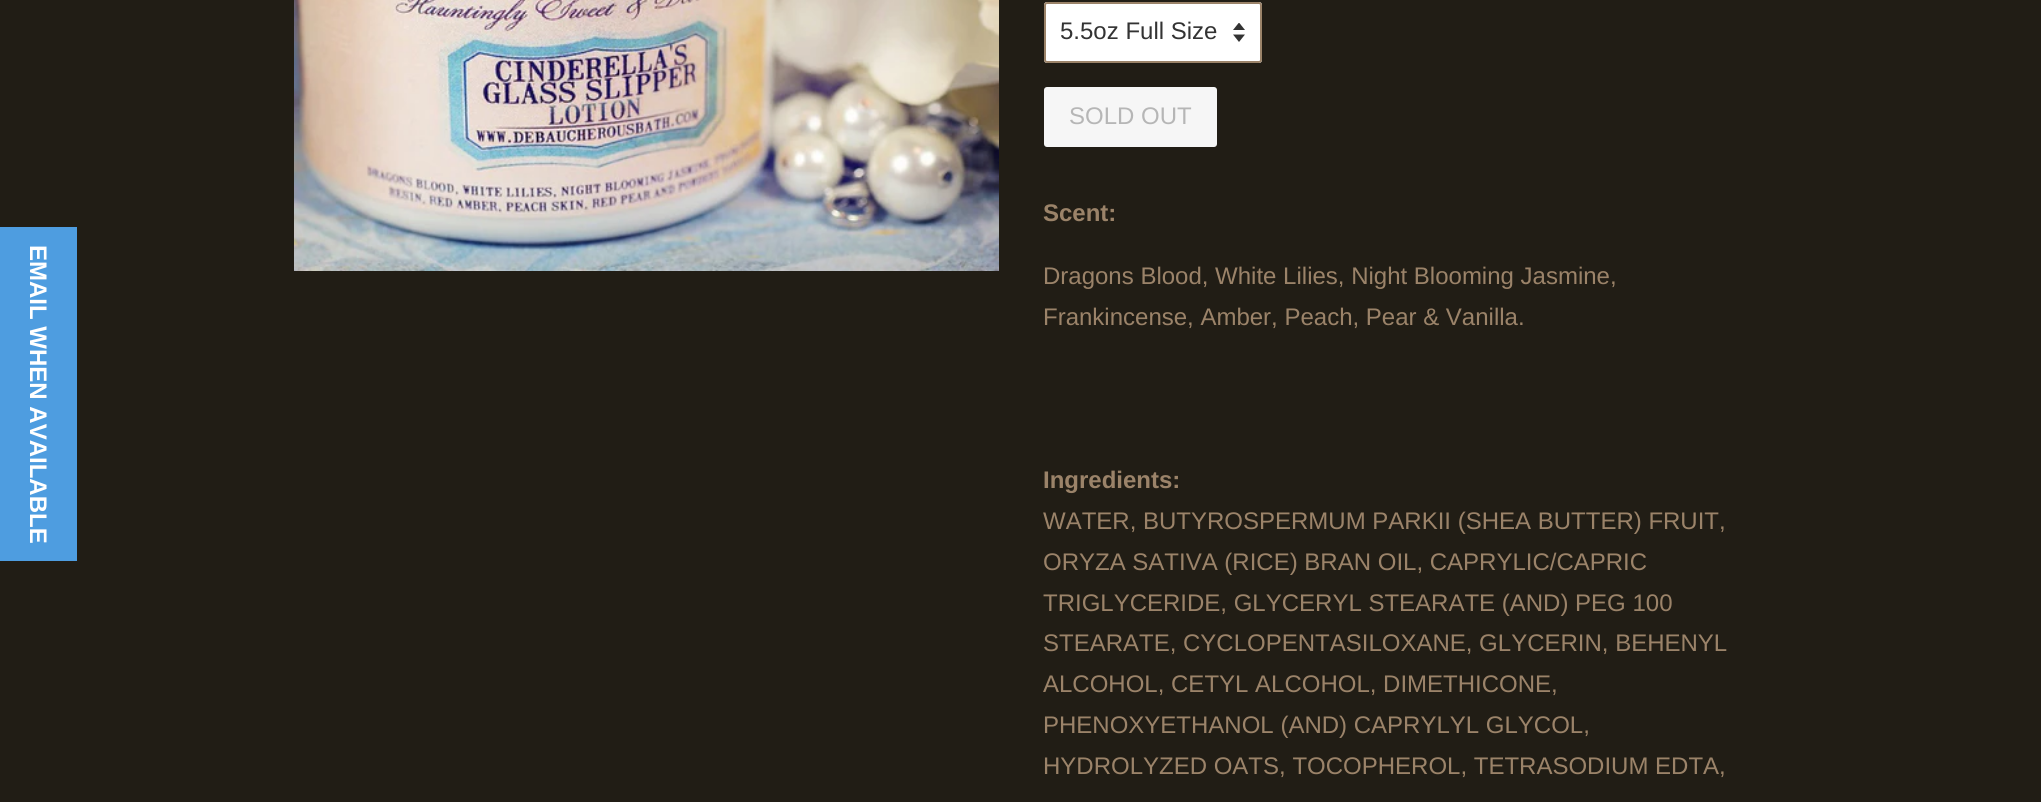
import math
import cairo

surface = cairo.ImageSurface(cairo.FORMAT_RGB24, 2041, 802)
cr = cairo.Context(surface)
options = cairo.FontOptions()
options.set_hint_metrics(cairo.HINT_METRICS_OFF)
options.set_hint_style(cairo.HINT_STYLE_NONE)
cr.set_font_options(options)
cr.set_miter_limit(4)


def rgb(code):
    cr.set_source_rgb(*(v / 255 for v in bytes.fromhex(code[-6:])))


def rrect(x, y, w, h, r):
    cr.new_sub_path()
    for i, (u, v) in enumerate([(x + w - r, y + h - r), (x + r, y + h - r), (x + r, y + r), (x + w - r, y + r)]):
        cr.arc(u, v, r, i * math.pi / 2, (i + 1) * math.pi / 2)
    cr.close_path()


def image(path, x, y, w, h):
    cr.save()
    cr.set_source_surface(cairo.ImageSurface.create_from_png(path), x, y)
    cr.rectangle(x, y, w, h)
    cr.fill()
    cr.restore()


rgb("#211d15")
cr.paint()
rgb("#4e9de0")
cr.rectangle(0, 227, 77, 334)
cr.fill()
image("img/1.png", 294, 0, 705, 271)
rgb("#ffffff")
rrect(1044, 2, 218, 61, 3)
cr.fill()
image("img/2.png", 1233, 23, 12, 19)
rrect(1045, 3, 216, 59, 2)
rgb("#9b8369")
cr.stroke()
rgb("#f6f6f6")
rrect(1044, 87, 173, 60, 3)
cr.fill()
cr.select_font_face("Liberation Sans", cairo.FONT_SLANT_NORMAL, cairo.FONT_WEIGHT_BOLD)
cr.set_font_size(24)
rgb("#ffffff")
cr.save()
cr.translate(30, 245)
cr.rotate(90 * math.pi / 180)
cr.move_to(0, 0)
cr.show_text("EMAIL WHEN AVAILABLE")
cr.restore()
cr.select_font_face("Liberation Sans")
rgb("#333333")
cr.move_to(1060, 39)
cr.show_text("5.5oz Full Size")
rgb("#b6b6b6")
cr.move_to(1069, 124)
cr.show_text("SOLD OUT")
cr.select_font_face("Liberation Sans", cairo.FONT_SLANT_NORMAL, cairo.FONT_WEIGHT_BOLD)
rgb("#9b8369")
cr.move_to(1043, 221)
cr.show_text("Scent:")
cr.select_font_face("Liberation Sans")
cr.move_to(1043, 284)
cr.show_text("Dragons Blood, White Lilies, Night Blooming Jasmine,")
cr.move_to(1043, 325)
cr.show_text("Frankincense, Amber, Peach, Pear & Vanilla.")
cr.select_font_face("Liberation Sans", cairo.FONT_SLANT_NORMAL, cairo.FONT_WEIGHT_BOLD)
cr.move_to(1043, 488)
cr.show_text("Ingredients:")
cr.select_font_face("Liberation Sans")
for x, y, s in [
    (1043, 529, "WATER, BUTYROSPERMUM PARKII (SHEA BUTTER) FRUIT,"),
    (1043, 570, "ORYZA SATIVA (RICE) BRAN OIL, CAPRYLIC/CAPRIC"),
    (1043, 611, "TRIGLYCERIDE, GLYCERYL STEARATE (AND) PEG 100"),
    (1043, 651, "STEARATE, CYCLOPENTASILOXANE, GLYCERIN, BEHENYL"),
    (1043, 692, "ALCOHOL, CETYL ALCOHOL, DIMETHICONE,"),
    (1043, 733, "PHENOXYETHANOL (AND) CAPRYLYL GLYCOL,"),
    (1043, 774, "HYDROLYZED OATS, TOCOPHEROL, TETRASODIUM EDTA,"),
]:
    cr.move_to(x, y)
    cr.show_text(s)
surface.write_to_png("page.png")
